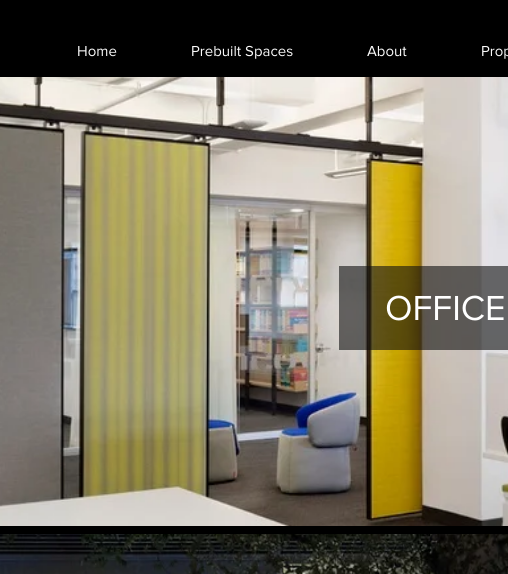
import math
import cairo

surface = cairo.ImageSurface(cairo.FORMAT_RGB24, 508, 574)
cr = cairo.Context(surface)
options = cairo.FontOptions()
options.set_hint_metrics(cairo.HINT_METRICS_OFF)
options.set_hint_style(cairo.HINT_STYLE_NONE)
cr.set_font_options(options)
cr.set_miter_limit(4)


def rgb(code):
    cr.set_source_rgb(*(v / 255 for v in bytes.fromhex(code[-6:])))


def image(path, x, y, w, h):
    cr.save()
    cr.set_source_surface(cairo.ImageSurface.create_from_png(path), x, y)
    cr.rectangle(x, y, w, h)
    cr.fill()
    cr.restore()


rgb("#000000")
cr.paint()
image("img/1.png", 0, 77, 508, 449)
cr.set_source_rgba(0.071, 0.067, 0.067, 0.6)
cr.rectangle(339, 266, 169, 84)
cr.fill()
image("img/2.png", 0, 534, 508, 40)
cr.select_font_face("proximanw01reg")
cr.set_font_size(15)
rgb("#f9f9f9")
for x, y, s in [
    (77, 56, "Home"),
    (191, 56, "Prebuilt Spaces"),
    (367, 56, "About"),
    (481, 56, "Prop"),
]:
    cr.move_to(x, y)
    cr.show_text(s)
cr.set_font_size(36)
rgb("#ffffff")
cr.move_to(385, 320)
cr.show_text("OFFICE")
surface.write_to_png("page.png")
